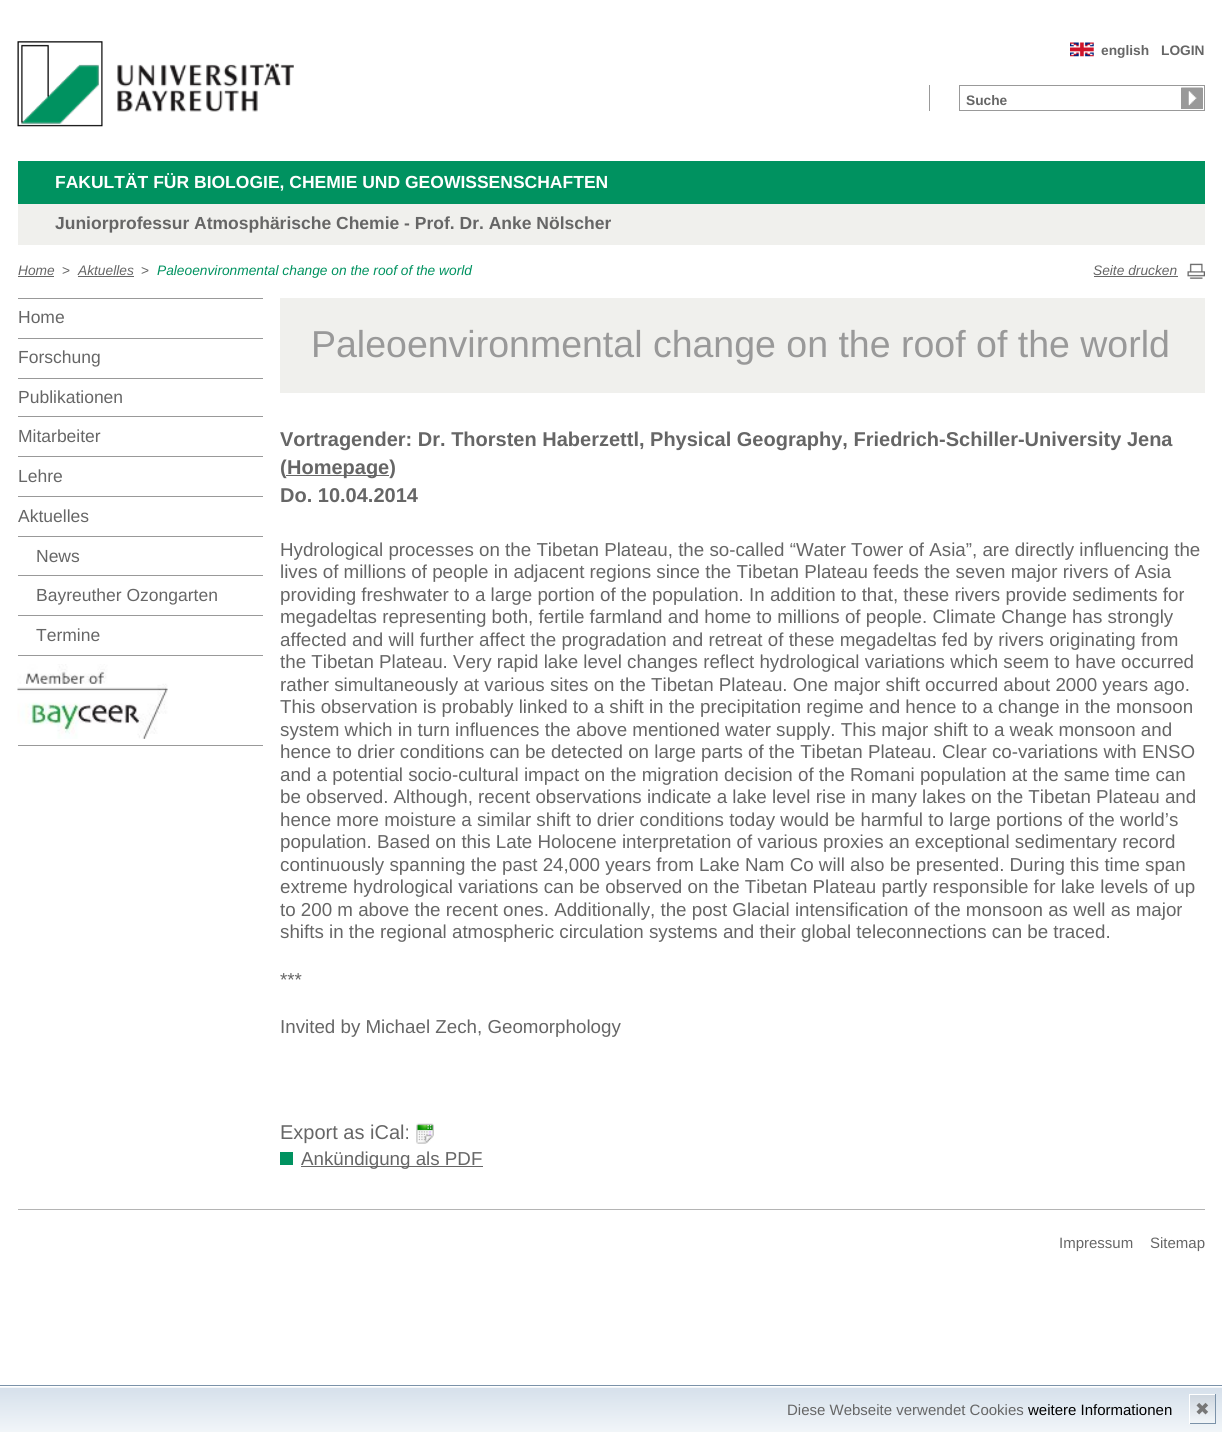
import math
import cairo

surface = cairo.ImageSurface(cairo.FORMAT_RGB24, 1222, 1432)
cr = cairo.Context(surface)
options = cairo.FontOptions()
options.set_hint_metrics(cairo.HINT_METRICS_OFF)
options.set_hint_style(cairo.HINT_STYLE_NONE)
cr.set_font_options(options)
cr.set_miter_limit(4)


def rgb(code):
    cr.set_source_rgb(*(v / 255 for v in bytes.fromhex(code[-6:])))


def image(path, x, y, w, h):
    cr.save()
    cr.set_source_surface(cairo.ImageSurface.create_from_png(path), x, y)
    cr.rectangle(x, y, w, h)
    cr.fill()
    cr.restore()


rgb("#ffffff")
cr.paint()
image("img/1.png", 17, 41, 277, 86)
image("img/2.png", 1070, 42, 24, 15)
rgb("#999999")
cr.rectangle(929, 85, 1, 26)
cr.fill()
cr.rectangle(959.5, 85.5, 245, 25)
cr.set_line_width(1)
cr.stroke()
cr.rectangle(1181, 88, 22, 21)
cr.fill()
image("img/3.png", 1181, 87, 22, 19)
for x, y, w, h, color in [
    (18, 161, 1187, 43, "#009260"),
    (18, 204, 1187, 41, "#f0f0ed"),
    (18, 276, 36, 1, "#666666"),
    (78, 276, 56, 1, "#666666"),
]:
    rgb(color)
    cr.rectangle(x, y, w, h)
    cr.fill()
image("img/4.png", 1187, 263, 18, 16)
for x, y, w, h, color in [
    (1094, 276, 84, 1, "#666666"),
    (18, 745, 245, 1, "#999999"),
    (18, 298, 245, 1, "#999999"),
    (18, 338, 245, 1, "#999999"),
    (18, 378, 245, 1, "#999999"),
    (18, 416, 245, 1, "#999999"),
    (18, 456, 245, 1, "#999999"),
    (18, 496, 245, 1, "#999999"),
    (18, 536, 245, 1, "#999999"),
    (18, 575, 245, 1, "#999999"),
    (18, 615, 245, 1, "#999999"),
    (18, 655, 245, 1, "#999999"),
]:
    rgb(color)
    cr.rectangle(x, y, w, h)
    cr.fill()
image("img/5.png", 17, 664, 151, 75)
rgb("#f0f0ed")
cr.rectangle(280, 298, 925, 95)
cr.fill()
rgb("#666666")
cr.rectangle(286, 475, 103, 1)
cr.fill()
image("img/6.png", 416, 1123, 18, 21)
for x, y, w, h, color in [
    (280, 1152, 13, 13, "#009260"),
    (301, 1166, 182, 1, "#666666"),
    (18, 1209, 1187, 1, "#b4b4b4"),
]:
    rgb(color)
    cr.rectangle(x, y, w, h)
    cr.fill()
gradient = cairo.LinearGradient(611, 1343, 611, 1388)
gradient.add_color_stop_rgba(0, 0.839, 0.878, 0.922, 1)
gradient.add_color_stop_rgba(1, 0.949, 0.965, 0.976, 1)
cr.set_source(gradient)
cr.rectangle(0, 1387, 1222, 1)
cr.fill()
gradient = cairo.LinearGradient(611, 1388, 611, 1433)
gradient.add_color_stop_rgba(0, 0.839, 0.878, 0.922, 1)
gradient.add_color_stop_rgba(1, 0.949, 0.965, 0.976, 1)
cr.set_source(gradient)
cr.rectangle(0, 1388, 1222, 44)
cr.fill()
cr.rectangle(-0.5, 1385.5, 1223, 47)
rgb("#7b92a9")
cr.stroke()
gradient = cairo.LinearGradient(1203, 1395, 1203, 1423)
gradient.add_color_stop_rgba(0, 0.808, 0.839, 0.875, 1)
gradient.add_color_stop_rgba(1, 0.949, 0.965, 0.976, 1)
cr.set_source(gradient)
cr.rectangle(1190, 1395, 25, 28)
cr.fill()
for x, y, w, h, color in [
    (1189, 1394, 27, 1, "#ffffff"),
    (1215, 1394, 1, 30, "#7b92a9"),
    (1189, 1423, 27, 1, "#7b92a9"),
    (1189, 1394, 1, 30, "#ffffff"),
]:
    rgb(color)
    cr.rectangle(x, y, w, h)
    cr.fill()
cr.select_font_face("Liberation Sans", cairo.FONT_SLANT_NORMAL, cairo.FONT_WEIGHT_BOLD)
cr.set_font_size(13.75)
rgb("#666666")
for x, y, s in [
    (1101, 55, "english"),
    (1161, 55, "LOGIN"),
    (966, 105, "Suche"),
]:
    cr.move_to(x, y)
    cr.show_text(s)
cr.set_font_size(17.5)
rgb("#ffffff")
cr.move_to(55, 188)
cr.show_text("FAKULTÄT FÜR BIOLOGIE, CHEMIE UND GEOWISSENSCHAFTEN")
rgb("#666666")
cr.move_to(55, 229)
cr.show_text("Juniorprofessur Atmosphärische Chemie - Prof. Dr. Anke Nölscher")
cr.select_font_face("Liberation Sans", cairo.FONT_SLANT_ITALIC)
cr.set_font_size(13.75)
cr.move_to(18, 275)
cr.show_text("Home")
cr.select_font_face("Liberation Sans")
cr.move_to(62, 275)
cr.show_text(">")
cr.select_font_face("Liberation Sans", cairo.FONT_SLANT_ITALIC)
cr.move_to(78, 275)
cr.show_text("Aktuelles")
cr.select_font_face("Liberation Sans")
cr.move_to(141, 275)
cr.show_text(">")
cr.select_font_face("Liberation Sans", cairo.FONT_SLANT_ITALIC)
rgb("#009260")
cr.move_to(157, 275)
cr.show_text("Paleoenvironmental change on the roof of the world")
rgb("#666666")
cr.move_to(1093, 275)
cr.show_text("Seite drucken")
cr.select_font_face("Liberation Sans")
cr.set_font_size(17.5)
for x, y, s in [
    (18, 323, "Home"),
    (18, 363, "Forschung"),
    (18, 403, "Publikationen"),
    (18, 442, "Mitarbeiter"),
    (18, 482, "Lehre"),
    (18, 522, "Aktuelles"),
    (36, 562, "News"),
    (36, 601, "Bayreuther Ozongarten"),
    (36, 641, "Termine"),
]:
    cr.move_to(x, y)
    cr.show_text(s)
cr.set_font_size(37.5)
rgb("#999999")
cr.move_to(311, 357)
cr.show_text("Paleoenvironmental change on the roof of the world")
cr.select_font_face("Liberation Sans", cairo.FONT_SLANT_NORMAL, cairo.FONT_WEIGHT_BOLD)
cr.set_font_size(20)
rgb("#666666")
for x, y, s in [
    (280, 446, "Vortragender: Dr. Thorsten Haberzettl, Physical Geography, Friedrich-Schiller-University Jena"),
    (280, 474, "("),
    (287, 474, "Homepage)"),
    (280, 502, "Do. 10.04.2014"),
]:
    cr.move_to(x, y)
    cr.show_text(s)
cr.select_font_face("Liberation Sans")
cr.set_font_size(18.75)
for x, y, s in [
    (280, 556, "Hydrological processes on the Tibetan Plateau, the so-called “Water Tower of Asia”, are directly influencing the"),
    (280, 578, "lives of millions of people in adjacent regions since the Tibetan Plateau feeds the seven major rivers of Asia"),
    (280, 601, "providing freshwater to a large portion of the population. In addition to that, these rivers provide sediments for"),
    (280, 623, "megadeltas representing both, fertile farmland and home to millions of people. Climate Change has strongly"),
    (280, 646, "affected and will further affect the progradation and retreat of these megadeltas fed by rivers originating from"),
    (280, 668, "the Tibetan Plateau. Very rapid lake level changes reflect hydrological variations which seem to have occurred"),
    (280, 691, "rather simultaneously at various sites on the Tibetan Plateau. One major shift occurred about 2000 years ago."),
    (280, 713, "This observation is probably linked to a shift in the precipitation regime and hence to a change in the monsoon"),
    (280, 736, "system which in turn influences the above mentioned water supply. This major shift to a weak monsoon and"),
    (280, 758, "hence to drier conditions can be detected on large parts of the Tibetan Plateau. Clear co-variations with ENSO"),
    (280, 781, "and a potential socio-cultural impact on the migration decision of the Romani population at the same time can"),
    (280, 803, "be observed. Although, recent observations indicate a lake level rise in many lakes on the Tibetan Plateau and"),
    (280, 826, "hence more moisture a similar shift to drier conditions today would be harmful to large portions of the world’s"),
    (280, 848, "population. Based on this Late Holocene interpretation of various proxies an exceptional sedimentary record"),
    (280, 871, "continuously spanning the past 24,000 years from Lake Nam Co will also be presented. During this time span"),
    (280, 893, "extreme hydrological variations can be observed on the Tibetan Plateau partly responsible for lake levels of up"),
    (280, 916, "to 200 m above the recent ones. Additionally, the post Glacial intensification of the monsoon as well as major"),
    (280, 938, "shifts in the regional atmospheric circulation systems and their global teleconnections can be traced."),
    (280, 986, "***"),
    (280, 1033, "Invited by Michael Zech, Geomorphology"),
]:
    cr.move_to(x, y)
    cr.show_text(s)
cr.set_font_size(20)
cr.move_to(280, 1139)
cr.show_text("Export as iCal:")
cr.set_font_size(18.75)
cr.move_to(301, 1165)
cr.show_text("Ankündigung als PDF")
cr.set_font_size(15)
for x, y, s in [
    (1059, 1248, "Impressum"),
    (1150, 1248, "Sitemap"),
    (787, 1415, "Diese Webseite verwendet Cookies"),
]:
    cr.move_to(x, y)
    cr.show_text(s)
rgb("#000000")
cr.move_to(1028, 1415)
cr.show_text("weitere Informationen")
cr.select_font_face("DejaVu Sans")
cr.set_font_size(17.5)
rgb("#777777")
cr.move_to(1195, 1415)
cr.show_text("✖")
surface.write_to_png("page.png")
